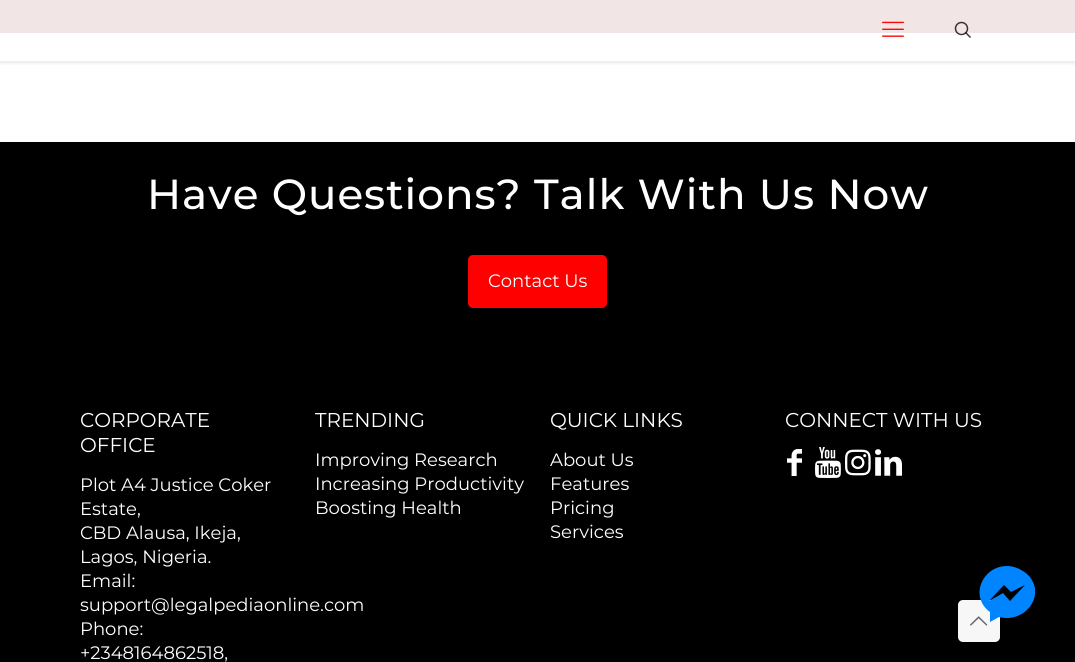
import math
import cairo

surface = cairo.ImageSurface(cairo.FORMAT_RGB24, 1075, 662)
cr = cairo.Context(surface)
options = cairo.FontOptions()
options.set_hint_metrics(cairo.HINT_METRICS_OFF)
options.set_hint_style(cairo.HINT_STYLE_NONE)
cr.set_font_options(options)
cr.set_miter_limit(4)


def rgb(code):
    cr.set_source_rgb(*(v / 255 for v in bytes.fromhex(code[-6:])))


def tracked(x, y, s, letter, word):
    cr.move_to(x, y)
    for ch in s:
        cr.show_text(ch)
        cr.rel_move_to(letter + word * (ch == ' '), 0)


def rrect(x, y, w, h, r):
    cr.new_sub_path()
    for i, (u, v) in enumerate([(x + w - r, y + h - r), (x + r, y + h - r), (x + r, y + r), (x + w - r, y + r)]):
        cr.arc(u, v, r, i * math.pi / 2, (i + 1) * math.pi / 2)
    cr.close_path()


def soft_shadow(x, y, w, h, r, blur, alpha):
    cr.push_group_with_content(cairo.CONTENT_ALPHA)
    cr.set_operator(cairo.OPERATOR_SOURCE)
    for i in range(15, -16, -2):
        e = blur * i / 6
        if min(w, h) + 2 * e > 0:
            cr.set_source_rgba(0, 0, 0, alpha * math.erfc((i - 1) / 8.5) / 2)
            rrect(x - e, y - e, w + 2 * e, h + 2 * e, max(0, min(r + e + blur * .6, min(w, h) / 2 + e)))
            cr.fill()
    cr.mask(cr.pop_group())


def image(path, x, y, w, h):
    cr.save()
    cr.set_source_surface(cairo.ImageSurface.create_from_png(path), x, y)
    cr.rectangle(x, y, w, h)
    cr.fill()
    cr.restore()


rgb("#ffffff")
cr.paint()
rgb("#f2e5e5")
cr.rectangle(0, 0, 1075, 33)
cr.fill()
cr.save()
cr.rectangle(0, 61, 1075, 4)
cr.clip()
rgb("#080808")
soft_shadow(0, 2, 1075, 61, 0, 2.5, 0.1)
cr.restore()
image("img/1.png", 882, 21, 22, 16)
cr.arc(961.5, 28.5, 6, 0, 2 * math.pi)
cr.set_source_rgba(0, 0, 0, 0.78)
cr.set_line_width(1.5)
cr.stroke()
cr.new_path()
cr.move_to(965.5, 32.5)
cr.line_to(970.5, 37.5)
cr.stroke()
rgb("#000000")
cr.rectangle(0, 142, 1075, 520)
cr.fill()
rgb("#ff0000")
rrect(468, 255, 139, 53, 5)
cr.fill()
image("img/2.png", 787, 449, 15, 27)
image("img/3.png", 815, 447, 26, 31)
image("img/4.png", 845, 449, 26, 27)
image("img/5.png", 875, 449, 27, 27)
rgb("#f7f7f7")
rrect(958, 600, 42, 42, 5)
cr.fill()
image("img/6.png", 970, 616, 18, 10)
cr.save()
cr.rectangle(979, 566, 56, 56)
cr.clip()
rgb("#0084ff")
cr.new_path()
cr.move_to(1007, 566)
cr.curve_to(982, 566, 969, 597, 990, 612)
cr.line_to(990, 622)
cr.line_to(999, 617)
cr.curve_to(1025, 624, 1048, 594, 1027, 574)
cr.curve_to(1021, 569, 1014, 566, 1007, 566)
cr.close_path()
cr.move_to(1010, 601)
cr.line_to(1003, 593)
cr.line_to(989, 601)
cr.line_to(1004, 585)
cr.line_to(1011, 592)
cr.line_to(1025, 585)
cr.close_path()
cr.fill()
cr.restore()
cr.select_font_face("Montserrat Medium")
cr.set_font_size(42)
rgb("#ffffff")
tracked(147, 209, "Have Questions? Talk With Us Now", 1, 0)
cr.select_font_face("Montserrat")
cr.set_font_size(18)
cr.move_to(488, 287)
cr.show_text("Contact Us")
cr.set_font_size(20)
cr.move_to(80, 427)
cr.show_text("CORPORATE")
cr.move_to(80, 452)
cr.show_text("OFFICE")
cr.set_font_size(18)
for x, y, s in [
    (80, 491, "Plot A4 Justice Coker"),
    (80, 515, "Estate,"),
    (80, 539, "CBD Alausa, Ikeja,"),
    (80, 563, "Lagos, Nigeria."),
    (80, 587, "Email:"),
    (80, 611, "support@legalpediaonline.com"),
    (80, 635, "Phone:"),
    (80, 659, "+2348164862518,"),
]:
    cr.move_to(x, y)
    cr.show_text(s)
cr.set_font_size(20)
cr.move_to(315, 427)
cr.show_text("TRENDING")
cr.set_font_size(18)
for x, y, s in [
    (315, 466, "Improving Research"),
    (315, 490, "Increasing Productivity"),
    (315, 514, "Boosting Health"),
]:
    cr.move_to(x, y)
    cr.show_text(s)
cr.set_font_size(20)
cr.move_to(550, 427)
cr.show_text("QUICK LINKS")
cr.set_font_size(18)
for x, y, s in [
    (550, 466, "About Us"),
    (550, 490, "Features"),
    (550, 514, "Pricing"),
    (550, 538, "Services"),
]:
    cr.move_to(x, y)
    cr.show_text(s)
cr.set_font_size(20)
cr.move_to(785, 427)
cr.show_text("CONNECT WITH US")
surface.write_to_png("page.png")
